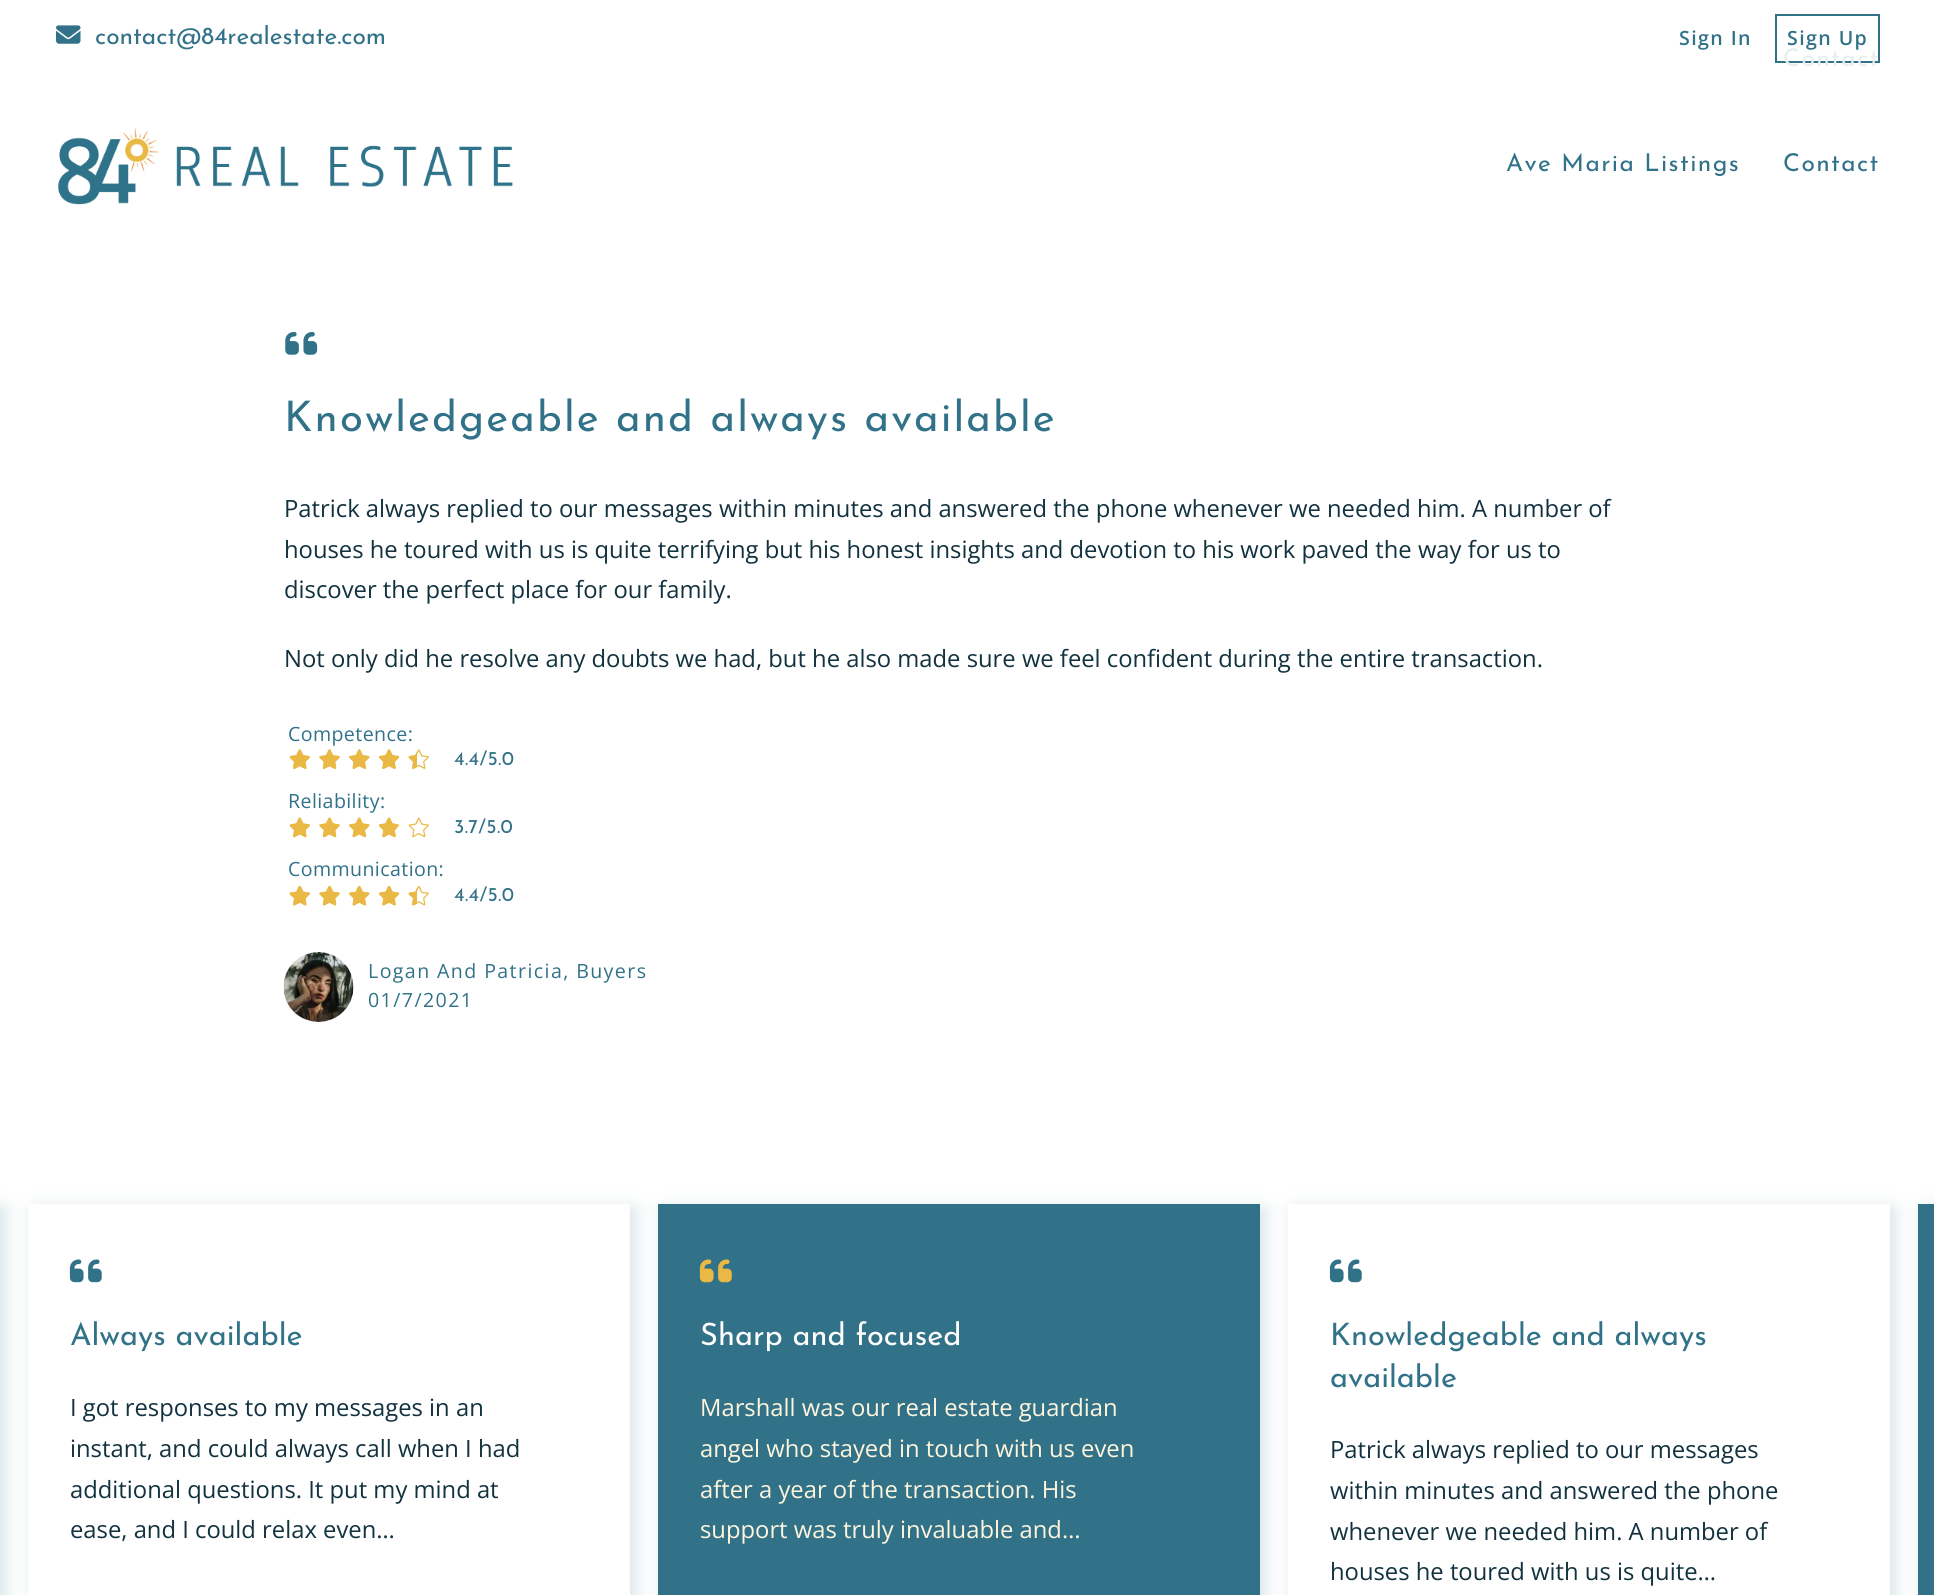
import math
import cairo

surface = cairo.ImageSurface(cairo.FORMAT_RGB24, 1934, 1595)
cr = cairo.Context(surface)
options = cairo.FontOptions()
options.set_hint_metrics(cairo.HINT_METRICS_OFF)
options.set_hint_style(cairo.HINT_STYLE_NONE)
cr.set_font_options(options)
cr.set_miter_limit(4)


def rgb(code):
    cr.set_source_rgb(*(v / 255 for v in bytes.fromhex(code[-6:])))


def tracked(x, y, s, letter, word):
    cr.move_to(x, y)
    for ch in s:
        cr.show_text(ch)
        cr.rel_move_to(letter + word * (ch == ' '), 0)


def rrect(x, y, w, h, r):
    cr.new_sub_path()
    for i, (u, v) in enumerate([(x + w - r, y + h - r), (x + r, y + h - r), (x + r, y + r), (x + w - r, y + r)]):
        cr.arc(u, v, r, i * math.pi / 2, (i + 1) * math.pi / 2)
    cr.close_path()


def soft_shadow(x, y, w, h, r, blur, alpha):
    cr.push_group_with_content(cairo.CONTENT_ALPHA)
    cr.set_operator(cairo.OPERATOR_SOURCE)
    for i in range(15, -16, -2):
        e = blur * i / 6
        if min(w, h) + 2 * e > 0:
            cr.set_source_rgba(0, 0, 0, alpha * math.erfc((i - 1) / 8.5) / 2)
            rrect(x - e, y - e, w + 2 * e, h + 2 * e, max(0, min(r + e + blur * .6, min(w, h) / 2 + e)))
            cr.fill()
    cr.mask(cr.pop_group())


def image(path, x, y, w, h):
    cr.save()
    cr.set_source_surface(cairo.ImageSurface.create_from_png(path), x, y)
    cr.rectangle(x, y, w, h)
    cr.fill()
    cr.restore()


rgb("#ffffff")
cr.paint()
image("img/1.png", 56, 25, 25, 19)
cr.rectangle(1776, 15, 103, 47)
rgb("#317289")
cr.stroke()
image("img/2.png", 58, 128, 455, 77)
image("img/3.png", 285, 332, 33, 23)
image("img/4.png", 289, 749, 21, 20)
image("img/5.png", 319, 749, 21, 20)
image("img/6.png", 349, 749, 21, 20)
image("img/7.png", 379, 749, 21, 20)
image("img/4.png", 408, 749, 21, 20)
image("img/8.png", 289, 749, 21, 20)
image("img/9.png", 319, 749, 21, 20)
image("img/10.png", 349, 749, 21, 20)
image("img/11.png", 379, 749, 21, 20)
image("img/12.png", 408, 751, 9, 18)
image("img/13.png", 289, 817, 21, 21)
image("img/14.png", 319, 817, 21, 21)
image("img/15.png", 349, 817, 21, 21)
image("img/16.png", 378, 817, 22, 21)
image("img/13.png", 408, 817, 21, 21)
image("img/17.png", 289, 817, 21, 21)
image("img/18.png", 319, 817, 21, 21)
image("img/19.png", 349, 817, 21, 21)
image("img/20.png", 379, 817, 18, 21)
image("img/21.png", 289, 885, 21, 21)
image("img/22.png", 319, 885, 21, 21)
image("img/23.png", 349, 885, 21, 21)
image("img/24.png", 378, 885, 22, 21)
image("img/21.png", 408, 885, 21, 21)
image("img/25.png", 289, 886, 21, 20)
image("img/26.png", 319, 886, 21, 20)
image("img/27.png", 349, 886, 21, 20)
image("img/28.png", 379, 886, 21, 20)
image("img/29.png", 408, 888, 9, 18)
image("img/30.png", 283, 952, 71, 70)
rgb("#317289")
soft_shadow(33, 1209, 602, 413, 0, 9, 0.2)
rgb("#ffffff")
cr.rectangle(28, 1204, 602, 391)
cr.fill()
rgb("#317289")
soft_shadow(-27, 1209, 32, 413, 0, 9, 0.2)
image("img/31.png", 69, 1259, 33, 24)
soft_shadow(663, 1209, 602, 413, 0, 9, 0.2)
rgb("#317289")
cr.rectangle(658, 1204, 602, 391)
cr.fill()
image("img/32.png", 699, 1259, 33, 24)
rgb("#317289")
soft_shadow(1293, 1209, 602, 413, 0, 9, 0.2)
rgb("#ffffff")
cr.rectangle(1288, 1204, 602, 391)
cr.fill()
image("img/31.png", 1329, 1259, 33, 24)
rgb("#317289")
soft_shadow(1923, 1209, 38, 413, 0, 9, 0.2)
rgb("#317289")
cr.rectangle(1918, 1204, 16, 391)
cr.fill()
cr.select_font_face("Josefin Sans")
cr.set_font_size(24.5)
cr.move_to(95, 44)
cr.show_text("contact@84realestate.com")
cr.select_font_face("Open Sans SemiBold")
cr.set_font_size(19.6)
tracked(1679, 45, "Sign In", 1.4, 0)
tracked(1787, 45, "Sign Up", 1.4, 0)
cr.select_font_face("Josefin Sans")
cr.set_font_size(24.5)
rgb("#e6eef0")
tracked(1783, 66, "Contact", 1.4, 0)
rgb("#317289")
tracked(1506, 171, "Ave Maria Listings", 1.4, 0)
tracked(1783, 171, "Contact", 1.4, 0)
cr.set_font_size(42)
tracked(284, 431, "Knowledgeable and always available", 2.1, 0)
cr.select_font_face("Open Sans")
cr.set_font_size(23.8)
rgb("#12323f")
for x, y, s in [
    (284, 517, "Patrick always replied to our messages within minutes and answered the phone whenever we needed him. A number of"),
    (284, 558, "houses he toured with us is quite terrifying but his honest insights and devotion to his work paved the way for us to"),
    (284, 598, "discover the perfect place for our family."),
    (284, 667, "Not only did he resolve any doubts we had, but he also made sure we feel confident during the entire transaction."),
]:
    cr.move_to(x, y)
    cr.show_text(s)
cr.set_font_size(19.6)
rgb("#317289")
tracked(288, 741, "Competence:", 0.4, 0)
cr.select_font_face("Josefin Sans")
tracked(454, 765, "4.4/5.0", 0.4, 0)
cr.select_font_face("Open Sans")
tracked(288, 808, "Reliability:", 0.4, 0)
cr.select_font_face("Josefin Sans")
tracked(454, 833, "3.7/5.0", 0.4, 0)
cr.select_font_face("Open Sans")
tracked(288, 876, "Communication:", 0.4, 0)
cr.select_font_face("Josefin Sans")
tracked(454, 901, "4.4/5.0", 0.4, 0)
cr.select_font_face("Open Sans")
tracked(368, 978, "Logan And Patricia, Buyers", 1.4, 0)
tracked(368, 1007, "01/7/2021", 1.4, 0)
cr.select_font_face("Josefin Sans")
cr.set_font_size(30.75)
cr.move_to(70, 1345)
cr.show_text("Always available")
cr.select_font_face("Open Sans")
cr.set_font_size(23.8)
rgb("#12323f")
for x, y, s in [
    (70, 1416, "I got responses to my messages in an"),
    (70, 1457, "instant, and could always call when I had"),
    (70, 1498, "additional questions. It put my mind at"),
    (70, 1538, "ease, and I could relax even…"),
]:
    cr.move_to(x, y)
    cr.show_text(s)
cr.select_font_face("Josefin Sans")
cr.set_font_size(30.75)
rgb("#ffffff")
cr.move_to(700, 1345)
cr.show_text("Sharp and focused")
cr.select_font_face("Open Sans")
cr.set_font_size(23.8)
rgb("#fff5dc")
for x, y, s in [
    (700, 1416, "Marshall was our real estate guardian"),
    (700, 1457, "angel who stayed in touch with us even"),
    (700, 1498, "after a year of the transaction. His"),
    (700, 1538, "support was truly invaluable and…"),
]:
    cr.move_to(x, y)
    cr.show_text(s)
cr.select_font_face("Josefin Sans")
cr.set_font_size(30.75)
rgb("#317289")
cr.move_to(1330, 1345)
cr.show_text("Knowledgeable and always")
cr.move_to(1330, 1387)
cr.show_text("available")
cr.select_font_face("Open Sans")
cr.set_font_size(23.8)
rgb("#12323f")
for x, y, s in [
    (1330, 1458, "Patrick always replied to our messages"),
    (1330, 1499, "within minutes and answered the phone"),
    (1330, 1540, "whenever we needed him. A number of"),
    (1330, 1580, "houses he toured with us is quite…"),
]:
    cr.move_to(x, y)
    cr.show_text(s)
surface.write_to_png("page.png")
